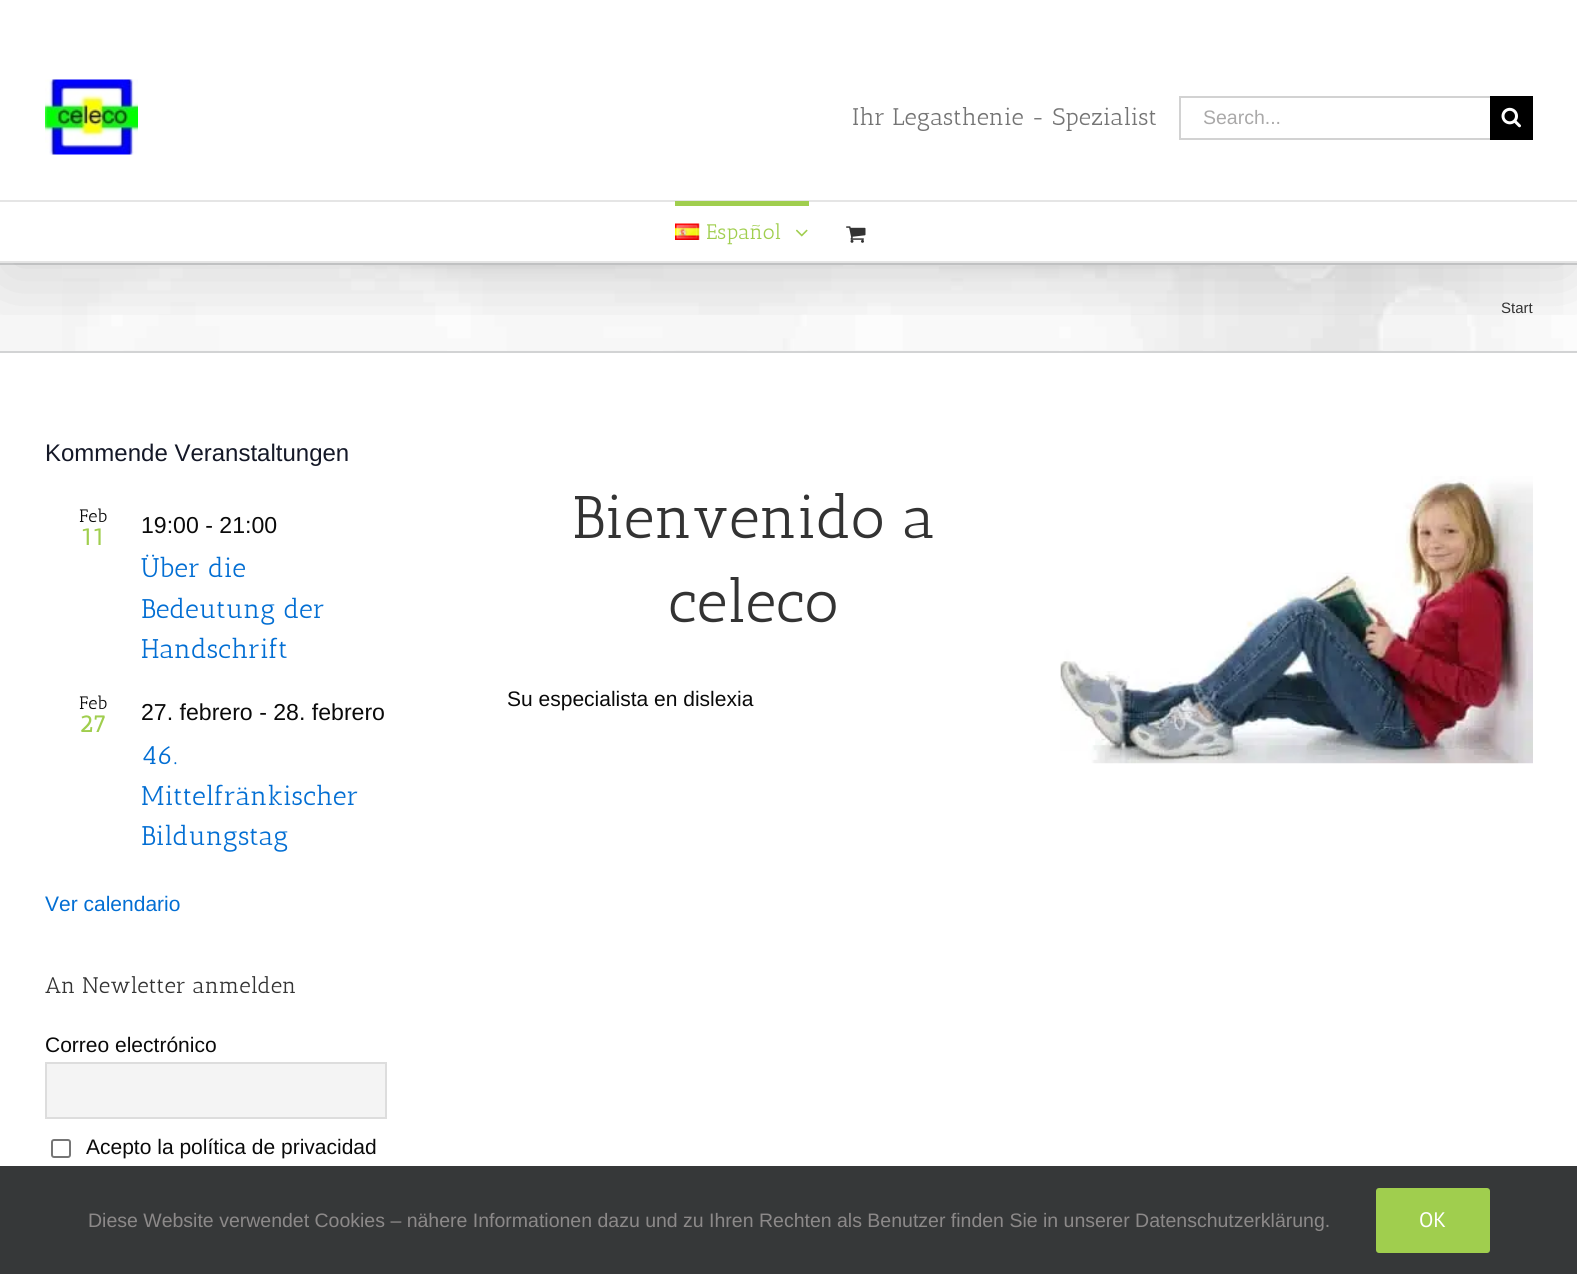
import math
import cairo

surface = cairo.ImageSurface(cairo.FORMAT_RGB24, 1577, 1274)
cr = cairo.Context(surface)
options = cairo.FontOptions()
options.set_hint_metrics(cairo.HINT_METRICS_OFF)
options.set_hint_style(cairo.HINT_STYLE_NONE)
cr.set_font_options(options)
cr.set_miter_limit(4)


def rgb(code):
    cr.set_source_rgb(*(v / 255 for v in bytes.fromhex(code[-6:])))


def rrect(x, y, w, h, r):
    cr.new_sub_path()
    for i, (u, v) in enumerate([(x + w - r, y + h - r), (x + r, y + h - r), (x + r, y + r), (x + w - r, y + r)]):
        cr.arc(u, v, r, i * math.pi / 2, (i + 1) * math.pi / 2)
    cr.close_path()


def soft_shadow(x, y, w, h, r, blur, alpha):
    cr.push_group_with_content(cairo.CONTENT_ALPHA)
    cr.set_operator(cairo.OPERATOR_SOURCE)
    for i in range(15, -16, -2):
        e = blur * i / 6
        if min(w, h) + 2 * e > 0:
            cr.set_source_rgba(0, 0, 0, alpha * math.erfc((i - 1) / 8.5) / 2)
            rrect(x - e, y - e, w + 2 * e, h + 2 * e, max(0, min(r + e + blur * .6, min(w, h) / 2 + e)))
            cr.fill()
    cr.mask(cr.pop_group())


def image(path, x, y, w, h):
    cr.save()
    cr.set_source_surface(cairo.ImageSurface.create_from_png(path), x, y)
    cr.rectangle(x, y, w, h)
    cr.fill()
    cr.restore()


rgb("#ffffff")
cr.paint()
rgb("#f6f6f6")
cr.rectangle(0, 265, 62, 86)
cr.fill()
image("img/6.png", 62, 265, 1515, 86)
rgb("#d2d3d4")
cr.rectangle(0, 263, 1577, 2)
cr.fill()
cr.rectangle(0, 351, 1577, 2)
cr.fill()
cr.save()
cr.rectangle(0, 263, 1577, 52)
cr.clip()
rgb("#000000")
soft_shadow(3, 6, 1572, 269, 0, 37.5, 0.14)
cr.restore()
rgb("#e5e5e5")
cr.rectangle(0, 200, 1577, 2)
cr.fill()
image("img/1.png", 45, 79, 93, 76)
for x, y, w, h, color in [
    (1179, 96, 311, 2, "#d2d2d2"),
    (1179, 138, 311, 2, "#d2d2d2"),
    (1179, 96, 2, 44, "#d2d2d2"),
    (1490, 96, 43, 44, "#000000"),
]:
    rgb(color)
    cr.rectangle(x, y, w, h)
    cr.fill()
image("img/2.png", 1501, 107, 20, 21)
rgb("#e5e5e5")
cr.rectangle(0, 261, 1577, 2)
cr.fill()
rgb("#a0ce4e")
cr.rectangle(675, 201, 134, 5)
cr.fill()
image("img/3.png", 675, 223, 25, 17)
image("img/4.png", 796, 229, 12, 8)
image("img/5.png", 846, 226, 20, 17)
rgb("#f4f4f4")
cr.rectangle(46, 1063, 340, 55)
cr.fill_preserve()
rgb("#dddddd")
cr.stroke()
rrect(52, 1140, 18, 17, 2)
rgb("#767676")
cr.stroke()
image("img/7.png", 1060, 476, 473, 288)
rgb("#363839")
cr.rectangle(0, 1166, 1577, 108)
cr.fill()
rgb("#a0ce4e")
rrect(1376, 1188, 114, 65, 3)
cr.fill()
cr.select_font_face("Antic Slab")
cr.set_font_size(24)
rgb("#747474")
cr.move_to(852, 125)
cr.show_text("Ihr Legasthenie - Spezialist")
cr.select_font_face("Liberation Sans")
cr.set_font_size(19.5)
rgb("#aaa9a9")
cr.move_to(1203, 124)
cr.show_text("Search...")
cr.select_font_face("Antic Slab")
cr.set_font_size(21)
rgb("#a0ce4e")
cr.move_to(706, 239)
cr.show_text("Español")
cr.select_font_face("Liberation Sans")
cr.set_font_size(15)
rgb("#333333")
cr.move_to(1501, 313)
cr.show_text("Start")
cr.set_font_size(24)
rgb("#141827")
cr.move_to(45, 461)
cr.show_text("Kommende Veranstaltungen")
cr.select_font_face("Antic Slab")
cr.set_font_size(18)
rgb("#0a0a0a")
cr.move_to(79, 522)
cr.show_text("Feb")
cr.select_font_face("Antic Slab", cairo.FONT_SLANT_NORMAL, cairo.FONT_WEIGHT_BOLD)
cr.set_font_size(24)
rgb("#a0ce4e")
cr.move_to(81, 545)
cr.show_text("11")
cr.select_font_face("Liberation Sans")
cr.set_font_size(23.1)
rgb("#0a0a0a")
cr.move_to(141, 533)
cr.show_text("19:00 - 21:00")
cr.select_font_face("Antic Slab")
cr.set_font_size(27)
rgb("#026ed3")
for x, y, s in [
    (141, 577, "Über die"),
    (141, 618, "Bedeutung der"),
    (141, 658, "Handschrift"),
]:
    cr.move_to(x, y)
    cr.show_text(s)
cr.set_font_size(18)
rgb("#0a0a0a")
cr.move_to(79, 709)
cr.show_text("Feb")
cr.select_font_face("Antic Slab", cairo.FONT_SLANT_NORMAL, cairo.FONT_WEIGHT_BOLD)
cr.set_font_size(24)
rgb("#a0ce4e")
cr.move_to(79, 732)
cr.show_text("27")
cr.select_font_face("Liberation Sans")
cr.set_font_size(23.1)
rgb("#0a0a0a")
cr.move_to(141, 720)
cr.show_text("27. febrero - 28. febrero")
cr.select_font_face("Antic Slab")
cr.set_font_size(27)
rgb("#026ed3")
for x, y, s in [
    (141, 764, "46."),
    (141, 805, "Mittelfränkischer"),
    (141, 845, "Bildungstag"),
]:
    cr.move_to(x, y)
    cr.show_text(s)
cr.select_font_face("Liberation Sans")
cr.set_font_size(21)
cr.move_to(45, 911)
cr.show_text("Ver calendario")
cr.select_font_face("Antic Slab")
cr.set_font_size(22.5)
rgb("#333333")
cr.move_to(45, 993)
cr.show_text("An Newletter anmelden")
cr.select_font_face("Liberation Sans")
cr.set_font_size(21)
rgb("#0a0a0a")
cr.move_to(45, 1052)
cr.show_text("Correo electrónico")
cr.move_to(86, 1154)
cr.show_text("Acepto la política de privacidad")
cr.select_font_face("Antic Slab")
cr.set_font_size(60)
rgb("#333333")
cr.move_to(572, 538)
cr.show_text("Bienvenido a")
cr.move_to(668, 622)
cr.show_text("celeco")
cr.select_font_face("Liberation Sans")
cr.set_font_size(21)
rgb("#0a0a0a")
cr.move_to(507, 706)
cr.show_text("Su especialista en dislexia")
cr.set_font_size(19.5)
rgb("#8c8989")
cr.move_to(88, 1227)
cr.show_text("Diese Website verwendet Cookies – nähere Informationen dazu und zu Ihren Rechten als Benutzer finden Sie in unserer Datenschutzerklärung.")
cr.select_font_face("PT Sans")
cr.set_font_size(21)
rgb("#ffffff")
cr.move_to(1419, 1227)
cr.show_text("OK")
surface.write_to_png("page.png")
